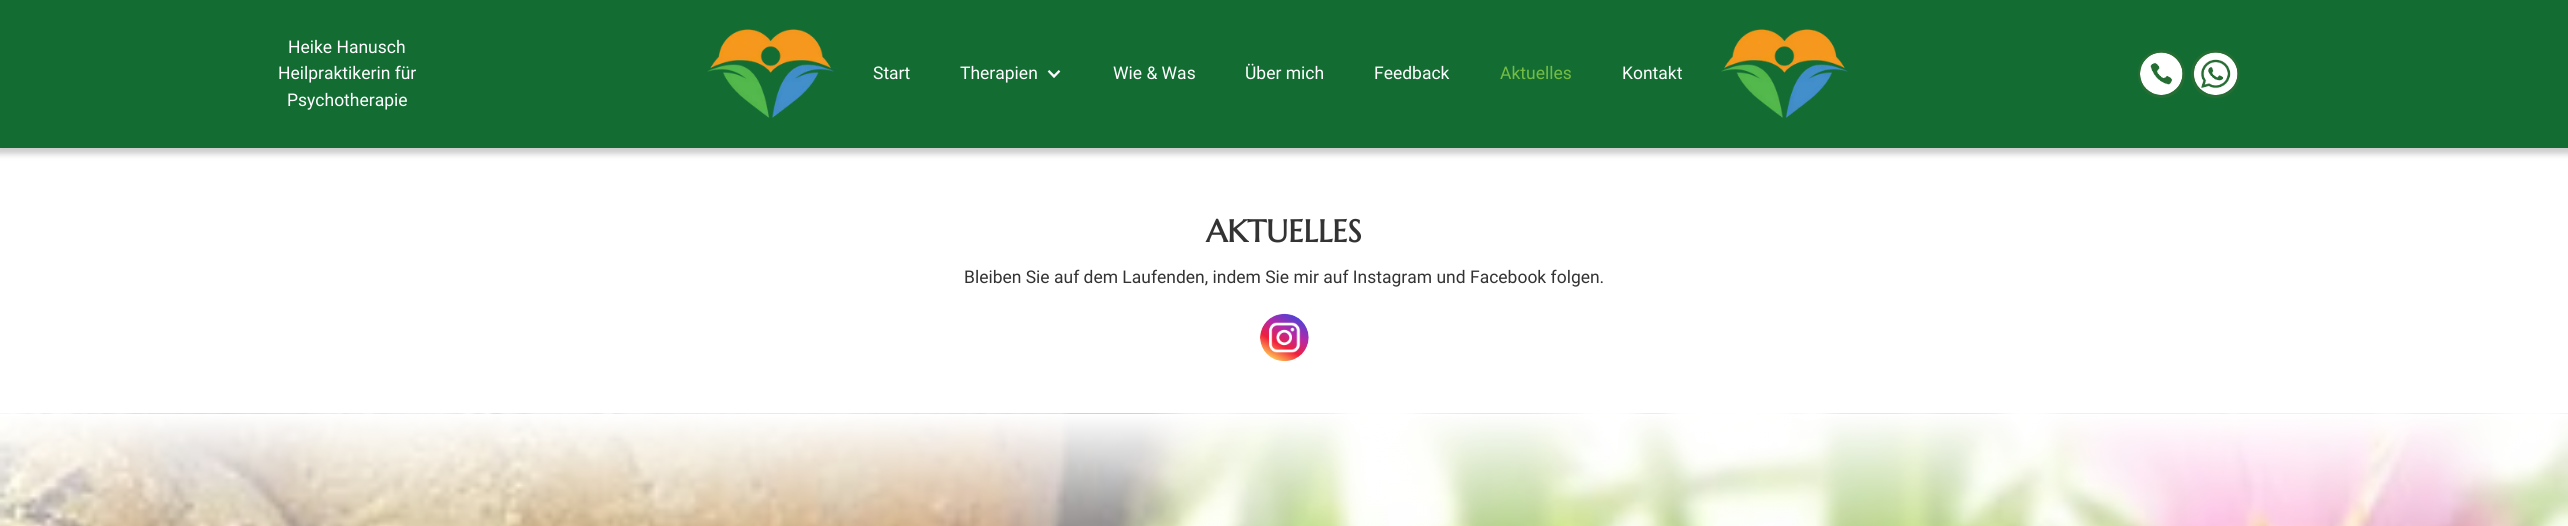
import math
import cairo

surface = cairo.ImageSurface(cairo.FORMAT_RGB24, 2568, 526)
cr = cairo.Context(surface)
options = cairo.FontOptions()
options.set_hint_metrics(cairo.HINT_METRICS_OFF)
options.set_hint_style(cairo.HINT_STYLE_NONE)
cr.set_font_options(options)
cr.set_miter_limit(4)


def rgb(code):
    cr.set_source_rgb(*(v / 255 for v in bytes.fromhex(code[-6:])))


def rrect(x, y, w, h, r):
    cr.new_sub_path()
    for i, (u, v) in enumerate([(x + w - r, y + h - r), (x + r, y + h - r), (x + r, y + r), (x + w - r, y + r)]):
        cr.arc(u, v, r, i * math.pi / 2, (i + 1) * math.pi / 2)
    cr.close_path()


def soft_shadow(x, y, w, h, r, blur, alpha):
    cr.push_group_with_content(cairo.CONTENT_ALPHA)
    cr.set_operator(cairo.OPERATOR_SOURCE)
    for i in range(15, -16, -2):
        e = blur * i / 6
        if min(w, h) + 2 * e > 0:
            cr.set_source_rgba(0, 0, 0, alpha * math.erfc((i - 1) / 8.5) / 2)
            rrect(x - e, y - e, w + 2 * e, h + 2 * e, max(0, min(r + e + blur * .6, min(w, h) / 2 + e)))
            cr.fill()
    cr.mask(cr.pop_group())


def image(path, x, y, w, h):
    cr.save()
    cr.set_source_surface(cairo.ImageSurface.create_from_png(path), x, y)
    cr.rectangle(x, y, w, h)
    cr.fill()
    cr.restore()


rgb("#ffffff")
cr.paint()
rgb("#000000")
soft_shadow(-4, -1, 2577, 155, 0, 3, 0.2)
rgb("#136d33")
cr.rectangle(0, 0, 2568, 148)
cr.fill()
image("img/1.png", 707, 29, 127, 89)
image("img/2.png", 1047, 70, 14, 8)
image("img/3.png", 1721, 29, 127, 89)
rrect(2139.5, 51.5, 44, 45, 22)
rgb("#266d33")
cr.set_line_width(3)
cr.stroke()
image("img/4.png", 2140, 52, 43, 43)
rrect(2192.5, 51.5, 46, 45, 22.5)
cr.stroke()
image("img/5.png", 2193, 52, 45, 43)
image("img/6.png", 1260, 313, 49, 49)
image("img/7.png", 0, 413, 2568, 113)
cr.select_font_face("Roboto")
cr.set_font_size(17.5)
rgb("#ffffff")
for x, y, s in [
    (288, 53, "Heike Hanusch"),
    (278, 79, "Heilpraktikerin für"),
    (287, 106, "Psychotherapie"),
    (873, 79, "Start"),
    (960, 79, "Therapien"),
    (1113, 79, "Wie & Was"),
    (1245, 79, "Über mich"),
    (1374, 79, "Feedback"),
]:
    cr.move_to(x, y)
    cr.show_text(s)
rgb("#74bd43")
cr.move_to(1500, 79)
cr.show_text("Aktuelles")
rgb("#ffffff")
cr.move_to(1622, 79)
cr.show_text("Kontakt")
cr.select_font_face("Marcellus SC", cairo.FONT_SLANT_NORMAL, cairo.FONT_WEIGHT_BOLD)
cr.set_font_size(31.25)
rgb("#333333")
cr.move_to(1206, 242)
cr.show_text("AKTUELLES")
cr.select_font_face("Roboto")
cr.set_font_size(17.5)
cr.move_to(964, 283)
cr.show_text("Bleiben Sie auf dem Laufenden, indem Sie mir auf Instagram und Facebook folgen.")
surface.write_to_png("page.png")
